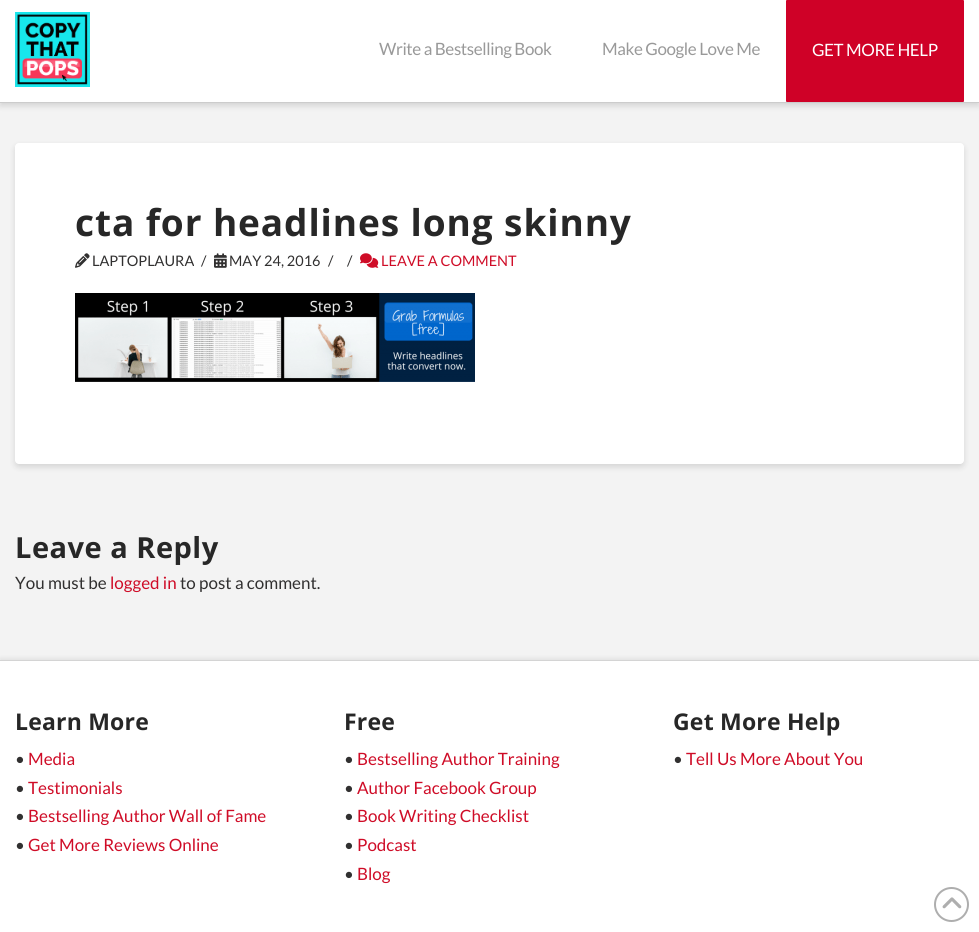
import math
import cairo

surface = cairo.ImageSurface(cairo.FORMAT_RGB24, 979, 932)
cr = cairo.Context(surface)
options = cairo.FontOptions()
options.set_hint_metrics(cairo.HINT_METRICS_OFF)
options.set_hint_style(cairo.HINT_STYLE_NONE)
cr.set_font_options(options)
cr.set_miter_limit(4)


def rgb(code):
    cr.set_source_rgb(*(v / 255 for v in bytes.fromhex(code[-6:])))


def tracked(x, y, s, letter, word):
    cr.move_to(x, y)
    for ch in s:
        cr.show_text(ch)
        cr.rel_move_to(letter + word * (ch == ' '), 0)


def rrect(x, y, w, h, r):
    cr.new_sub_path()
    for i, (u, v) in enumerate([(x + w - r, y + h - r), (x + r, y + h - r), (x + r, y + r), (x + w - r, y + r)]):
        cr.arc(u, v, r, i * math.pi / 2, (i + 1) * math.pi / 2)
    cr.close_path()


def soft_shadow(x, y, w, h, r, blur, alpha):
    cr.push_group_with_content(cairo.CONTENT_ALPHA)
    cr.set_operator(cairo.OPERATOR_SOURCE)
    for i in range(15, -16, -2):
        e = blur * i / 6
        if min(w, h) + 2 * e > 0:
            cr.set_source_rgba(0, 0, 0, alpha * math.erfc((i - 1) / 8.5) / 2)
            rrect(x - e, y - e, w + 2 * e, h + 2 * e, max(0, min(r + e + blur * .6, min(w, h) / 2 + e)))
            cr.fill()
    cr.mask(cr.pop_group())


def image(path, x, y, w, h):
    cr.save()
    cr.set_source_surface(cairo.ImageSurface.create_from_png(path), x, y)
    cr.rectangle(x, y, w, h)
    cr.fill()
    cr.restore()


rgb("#f3f3f3")
cr.paint()
rgb("#000000")
soft_shadow(0, 3, 979, 103, 0, 3, 0.13)
rgb("#ffffff")
cr.rectangle(0, 0, 979, 102)
cr.fill()
rgb("#cccccc")
cr.rectangle(0, 102, 979, 1)
cr.fill()
image("img/1.png", 15, 12, 75, 75)
rgb("#cf0127")
rrect(786, 0, 178, 102, 1)
cr.fill()
rgb("#000000")
soft_shadow(15, 146, 949, 321, 4, 3, 0.13)
rgb("#ffffff")
rrect(15, 143, 949, 321, 4)
cr.fill()
image("img/2.png", 75, 253, 15, 15)
image("img/3.png", 214, 253, 13, 15)
image("img/4.png", 360, 253, 19, 15)
image("img/5.png", 75, 293, 400, 89)
rgb("#000000")
soft_shadow(0, 658, 979, 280, 0, 2, 0.07)
rgb("#ffffff")
cr.rectangle(0, 661, 979, 271)
cr.fill()
rgb("#d4d4d4")
cr.rectangle(0, 660, 979, 1)
cr.fill()
cr.arc(951.5, 904.5, 16.5, 0, 2 * math.pi)
rgb("#aeaeae")
cr.stroke()
image("img/6.png", 942, 897, 20, 12)
cr.select_font_face("Lato")
cr.set_font_size(17)
rgb("#999999")
tracked(379, 55, "Write a Bestselling Book", -0.4, 0)
tracked(602, 55, "Make Google Love Me", -0.4, 0)
rgb("#ffffff")
tracked(812, 56, "GET MORE HELP", -0.4, 0)
cr.select_font_face("Open Sans", cairo.FONT_SLANT_NORMAL, cairo.FONT_WEIGHT_BOLD)
cr.set_font_size(37)
rgb("#272727")
tracked(75, 236, "cta for headlines long skinny", 0.9, 0)
cr.select_font_face("Lato")
cr.set_font_size(14.5)
rgb("#313030")
for x, y, s in [
    (92, 266, "LAPTOPLAURA"),
    (201, 266, "/"),
    (229, 266, "MAY 24, 2016"),
    (328, 266, "/"),
    (347, 266, "/"),
]:
    cr.move_to(x, y)
    cr.show_text(s)
rgb("#cf0c27")
cr.move_to(381, 266)
cr.show_text("LEAVE A COMMENT")
cr.select_font_face("Open Sans", cairo.FONT_SLANT_NORMAL, cairo.FONT_WEIGHT_BOLD)
cr.set_font_size(29)
rgb("#272727")
tracked(15, 558, "Leave a Reply", 0.5, 0)
cr.select_font_face("Lato")
cr.set_font_size(17)
rgb("#313030")
cr.move_to(15, 589)
cr.show_text("You must be")
rgb("#cf0c27")
cr.move_to(110, 589)
cr.show_text("logged in")
rgb("#313030")
cr.move_to(180, 589)
cr.show_text("to post a comment.")
cr.select_font_face("Open Sans", cairo.FONT_SLANT_NORMAL, cairo.FONT_WEIGHT_BOLD)
cr.set_font_size(23)
rgb("#272727")
tracked(15, 730, "Learn More", 0.2, 0)
cr.select_font_face("Lato")
cr.set_font_size(17)
rgb("#313030")
cr.move_to(15, 765)
cr.show_text("•")
rgb("#cf0c27")
cr.move_to(28, 765)
cr.show_text("Media")
rgb("#313030")
cr.move_to(15, 794)
cr.show_text("•")
rgb("#cf0c27")
cr.move_to(28, 794)
cr.show_text("Testimonials")
rgb("#313030")
cr.move_to(15, 822)
cr.show_text("•")
rgb("#cf0c27")
cr.move_to(28, 822)
cr.show_text("Bestselling Author Wall of Fame")
rgb("#313030")
cr.move_to(15, 851)
cr.show_text("•")
rgb("#cf0c27")
cr.move_to(28, 851)
cr.show_text("Get More Reviews Online")
cr.select_font_face("Open Sans", cairo.FONT_SLANT_NORMAL, cairo.FONT_WEIGHT_BOLD)
cr.set_font_size(23)
rgb("#272727")
tracked(344, 730, "Free", 0.2, 0)
cr.select_font_face("Lato")
cr.set_font_size(17)
rgb("#313030")
cr.move_to(344, 765)
cr.show_text("•")
rgb("#cf0c27")
cr.move_to(357, 765)
cr.show_text("Bestselling Author Training")
rgb("#313030")
cr.move_to(344, 794)
cr.show_text("•")
rgb("#cf0c27")
cr.move_to(357, 794)
cr.show_text("Author Facebook Group")
rgb("#313030")
cr.move_to(344, 822)
cr.show_text("•")
rgb("#cf0c27")
cr.move_to(357, 822)
cr.show_text("Book Writing Checklist")
rgb("#313030")
cr.move_to(344, 851)
cr.show_text("•")
rgb("#cf0c27")
cr.move_to(357, 851)
cr.show_text("Podcast")
rgb("#313030")
cr.move_to(344, 880)
cr.show_text("•")
rgb("#cf0c27")
cr.move_to(357, 880)
cr.show_text("Blog")
cr.select_font_face("Open Sans", cairo.FONT_SLANT_NORMAL, cairo.FONT_WEIGHT_BOLD)
cr.set_font_size(23)
rgb("#272727")
tracked(673, 730, "Get More Help", 0.2, 0)
cr.select_font_face("Lato")
cr.set_font_size(17)
rgb("#313030")
cr.move_to(673, 765)
cr.show_text("•")
rgb("#cf0c27")
cr.move_to(686, 765)
cr.show_text("Tell Us More About You")
surface.write_to_png("page.png")
